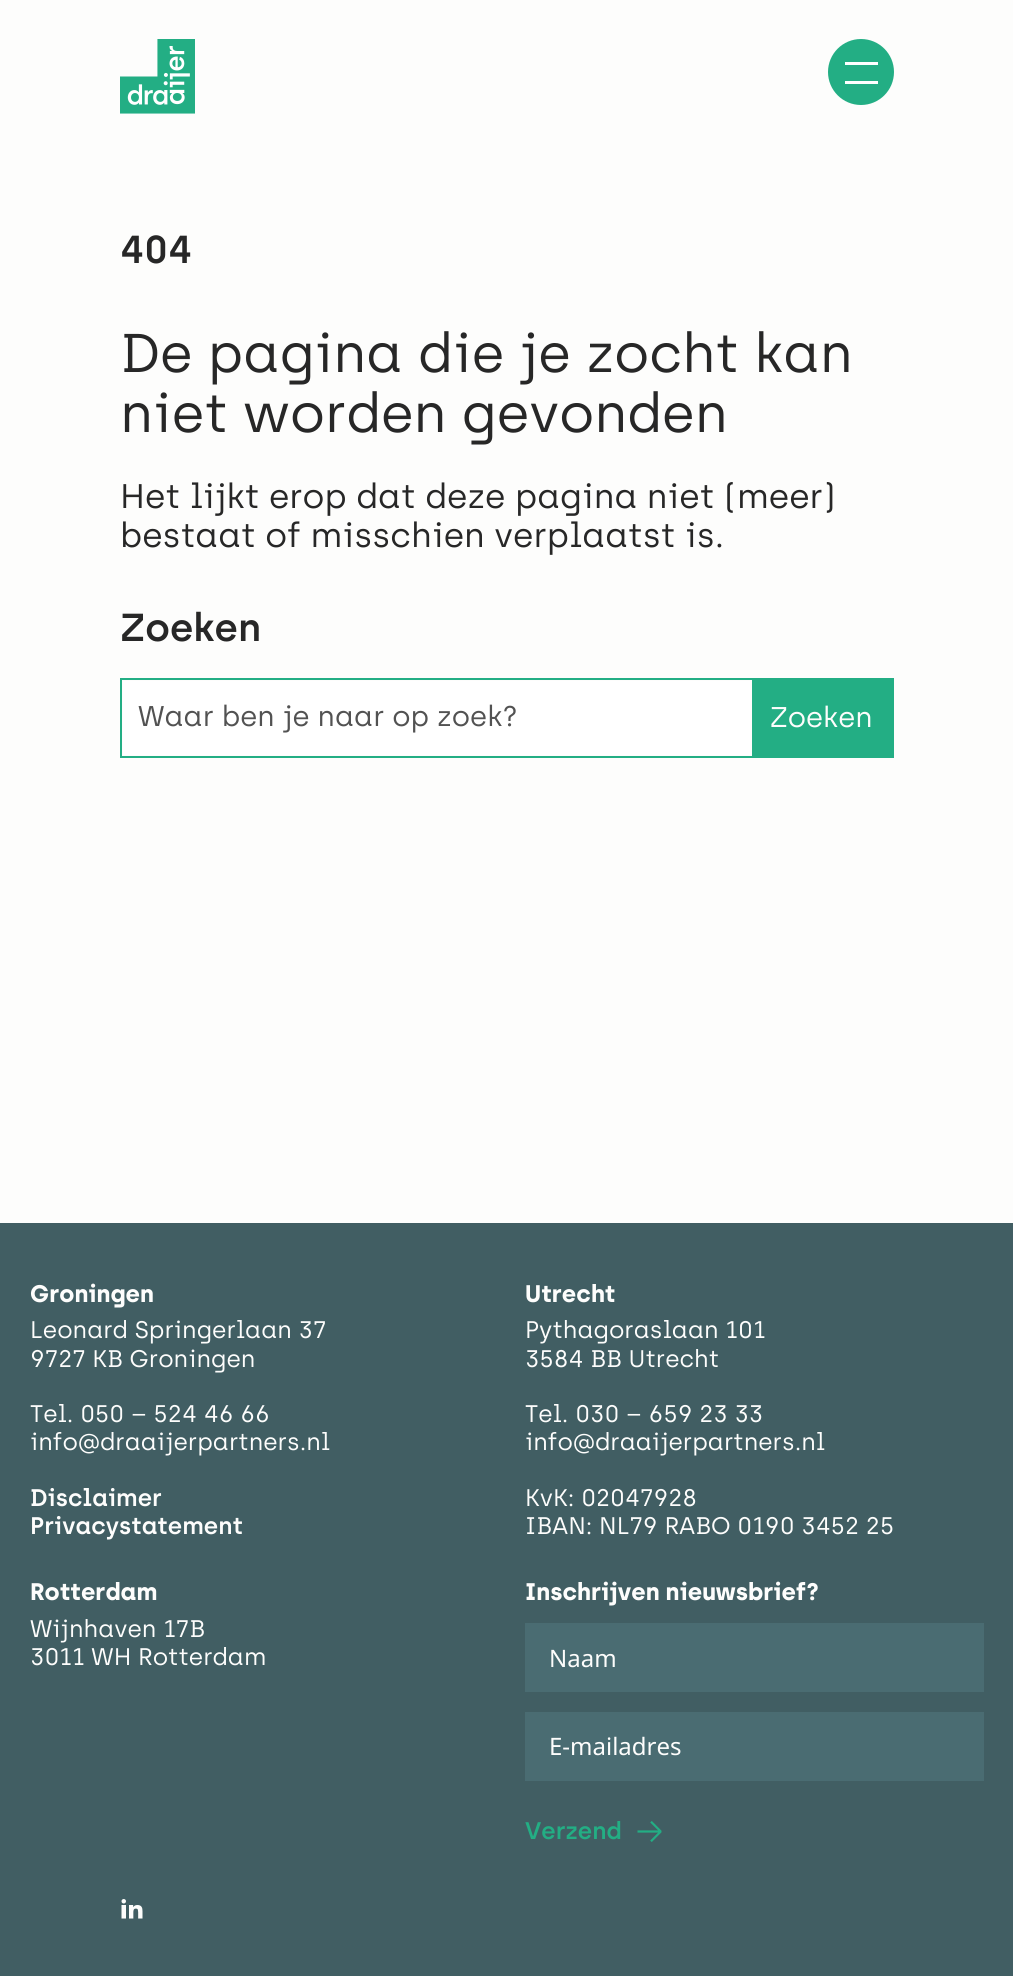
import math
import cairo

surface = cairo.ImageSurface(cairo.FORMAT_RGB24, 1013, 1976)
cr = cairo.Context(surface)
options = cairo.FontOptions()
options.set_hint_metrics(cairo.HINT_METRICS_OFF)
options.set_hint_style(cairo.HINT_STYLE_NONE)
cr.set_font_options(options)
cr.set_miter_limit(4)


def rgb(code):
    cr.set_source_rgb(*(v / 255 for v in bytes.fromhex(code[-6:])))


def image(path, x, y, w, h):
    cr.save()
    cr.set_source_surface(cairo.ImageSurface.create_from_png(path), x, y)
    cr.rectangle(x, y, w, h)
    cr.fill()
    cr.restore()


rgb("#fdfdfc")
cr.paint()
image("img/1.png", 120, 39, 75, 75)
rgb("#23ae84")
cr.arc(861, 72, 33, 0, 2 * math.pi)
cr.fill()
rgb("#ffffff")
cr.rectangle(845, 62, 33, 3)
cr.fill()
cr.rectangle(845, 81, 33, 3)
cr.fill()
cr.rectangle(121, 679, 772, 78)
rgb("#23ae84")
cr.stroke()
for x, y, w, h, color in [
    (123, 681, 627, 74, "#ffffff"),
    (752, 680, 140, 76, "#23ae84"),
    (0, 1223, 1013, 753, "#415e63"),
]:
    rgb(color)
    cr.rectangle(x, y, w, h)
    cr.fill()
rgb("#4a6c72")
cr.rectangle(526, 1624, 457, 67)
cr.fill_preserve()
cr.stroke()
cr.rectangle(526, 1713, 457, 67)
cr.fill_preserve()
cr.stroke()
image("img/2.png", 637, 1821, 25, 21)
image("img/3.png", 121, 1899, 22, 20)
cr.select_font_face("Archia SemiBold")
cr.set_font_size(39)
rgb("#272727")
cr.move_to(120, 263)
cr.show_text("404")
cr.select_font_face("Archia")
cr.set_font_size(54.4)
cr.move_to(120, 372)
cr.show_text("De pagina die je zocht kan")
cr.move_to(120, 432)
cr.show_text("niet worden gevonden")
cr.set_font_size(34.1)
cr.move_to(120, 508)
cr.show_text("Het lijkt erop dat deze pagina niet (meer)")
cr.move_to(120, 547)
cr.show_text("bestaat of misschien verplaatst is.")
cr.select_font_face("Archia SemiBold")
cr.set_font_size(39)
cr.move_to(120, 641)
cr.show_text("Zoeken")
cr.select_font_face("Archia")
cr.set_font_size(28.5)
rgb("#525252")
cr.move_to(138, 726)
cr.show_text("Waar ben je naar op zoek?")
rgb("#fdfdfc")
cr.move_to(770, 727)
cr.show_text("Zoeken")
cr.select_font_face("Archia", cairo.FONT_SLANT_NORMAL, cairo.FONT_WEIGHT_BOLD)
cr.set_font_size(24)
cr.move_to(30, 1302)
cr.show_text("Groningen")
cr.select_font_face("Archia")
for x, y, s in [
    (30, 1338, "Leonard Springerlaan 37"),
    (30, 1367, "9727 KB Groningen"),
    (30, 1422, "Tel. 050 – 524 46 66"),
    (30, 1450, "info@draaijerpartners.nl"),
]:
    cr.move_to(x, y)
    cr.show_text(s)
cr.select_font_face("Archia SemiBold")
cr.move_to(30, 1506)
cr.show_text("Disclaimer")
cr.move_to(30, 1534)
cr.show_text("Privacystatement")
cr.select_font_face("Archia", cairo.FONT_SLANT_NORMAL, cairo.FONT_WEIGHT_BOLD)
cr.move_to(525, 1302)
cr.show_text("Utrecht")
cr.select_font_face("Archia")
for x, y, s in [
    (525, 1338, "Pythagoraslaan 101"),
    (525, 1367, "3584 BB Utrecht"),
    (525, 1422, "Tel. 030 – 659 23 33"),
    (525, 1450, "info@draaijerpartners.nl"),
    (525, 1506, "KvK: 02047928"),
    (525, 1534, "IBAN: NL79 RABO 0190 3452 25"),
]:
    cr.move_to(x, y)
    cr.show_text(s)
cr.select_font_face("Archia", cairo.FONT_SLANT_NORMAL, cairo.FONT_WEIGHT_BOLD)
cr.move_to(30, 1600)
cr.show_text("Rotterdam")
cr.select_font_face("Archia")
cr.move_to(30, 1637)
cr.show_text("Wijnhaven 17B")
cr.move_to(30, 1665)
cr.show_text("3011 WH Rotterdam")
cr.select_font_face("Archia", cairo.FONT_SLANT_NORMAL, cairo.FONT_WEIGHT_BOLD)
cr.move_to(525, 1600)
cr.show_text("Inschrijven nieuwsbrief?")
cr.select_font_face("Noto Sans")
cr.move_to(549, 1667)
cr.show_text("Naam")
cr.move_to(549, 1755)
cr.show_text("E-mailadres")
cr.select_font_face("Archia SemiBold")
rgb("#23ae84")
cr.move_to(525, 1839)
cr.show_text("Verzend")
surface.write_to_png("page.png")
